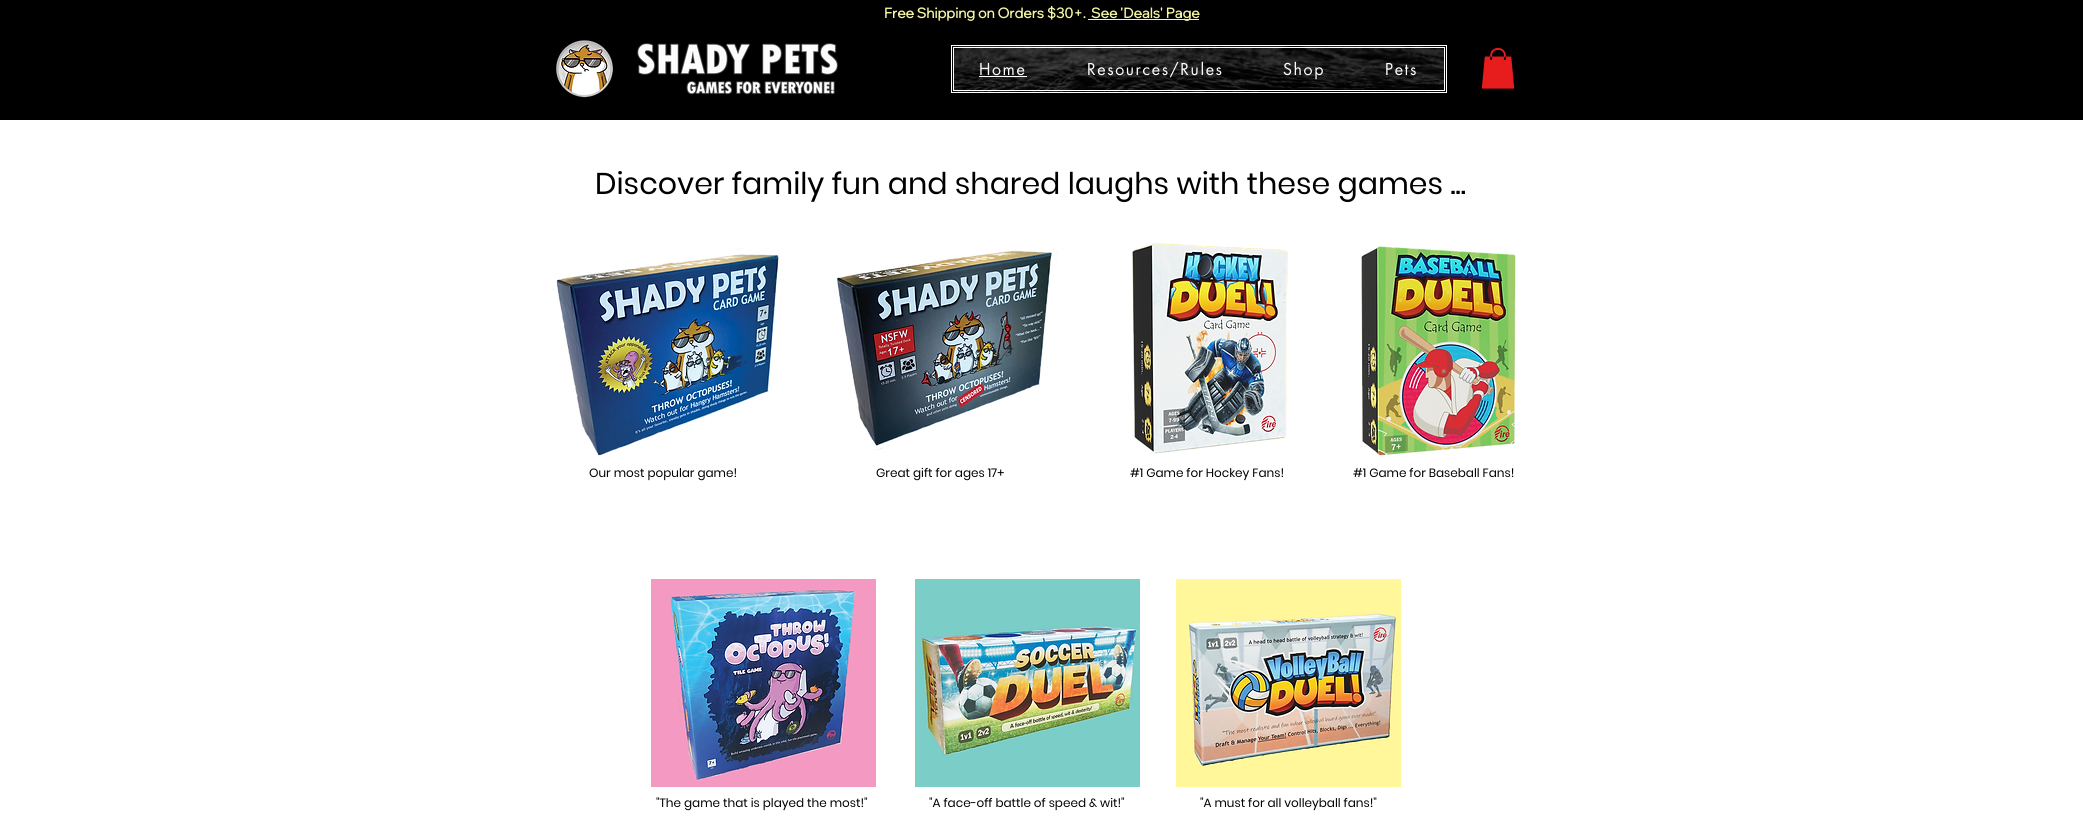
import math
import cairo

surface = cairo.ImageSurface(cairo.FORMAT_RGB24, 2083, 829)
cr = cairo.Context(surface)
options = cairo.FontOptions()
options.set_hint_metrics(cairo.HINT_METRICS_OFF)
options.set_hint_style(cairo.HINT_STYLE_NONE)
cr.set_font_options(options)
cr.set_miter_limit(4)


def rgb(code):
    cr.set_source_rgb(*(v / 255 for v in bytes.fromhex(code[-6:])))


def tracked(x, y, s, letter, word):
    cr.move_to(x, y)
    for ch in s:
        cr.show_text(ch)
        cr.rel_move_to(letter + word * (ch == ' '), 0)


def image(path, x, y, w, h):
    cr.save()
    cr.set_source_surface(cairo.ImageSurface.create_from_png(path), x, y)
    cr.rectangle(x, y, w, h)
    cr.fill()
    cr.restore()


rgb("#ffffff")
cr.paint()
rgb("#000000")
cr.rectangle(0, 0, 2083, 120)
cr.fill()
rgb("#f6f5a3")
cr.rectangle(1088, 19, 111, 1)
cr.fill()
image("img/1.png", 556, 40, 57, 58)
image("img/2.png", 637, 43, 201, 52)
image("img/3.png", 954, 46, 490, 46)
cr.rectangle(951.5, 45.5, 495, 47)
rgb("#ffffff")
cr.set_line_width(1)
cr.stroke()
cr.rectangle(953.5, 47.5, 491, 43)
cr.stroke()
cr.rectangle(979, 76, 48, 1)
cr.fill()
image("img/4.png", 1481, 48, 34, 41)
image("img/5.png", 552, 248, 229, 208)
image("img/6.png", 834, 250, 224, 200)
image("img/7.png", 1132, 243, 156, 211)
image("img/8.png", 1361, 246, 155, 210)
image("img/9.png", 651, 579, 225, 208)
image("img/10.png", 915, 579, 225, 208)
image("img/11.png", 1176, 579, 225, 208)
cr.select_font_face("Wix Madefor Display", cairo.FONT_SLANT_NORMAL, cairo.FONT_WEIGHT_BOLD)
cr.set_font_size(14)
rgb("#f6f5a3")
cr.move_to(884, 18)
cr.show_text("Free Shipping on Orders $30+.")
cr.move_to(1091, 18)
cr.show_text("See 'Deals' Page")
cr.select_font_face("futura")
cr.set_font_size(16)
rgb("#ffffff")
for x, y, s in [
    (979, 75, "Home"),
    (1087, 75, "Resources/Rules"),
    (1283, 75, "Shop"),
    (1385, 75, "Pets"),
]:
    tracked(x, y, s, 1.6, 0)
cr.select_font_face("Poppins")
cr.set_font_size(30)
rgb("#000000")
cr.move_to(595, 194)
cr.show_text("Discover family fun and shared laughs with these games ...")
cr.set_font_size(12)
for x, y, s in [
    (589, 477, "Our most popular game!"),
    (876, 477, "Great gift for ages 17+"),
    (1130, 477, "#1 Game for Hockey Fans!"),
    (1353, 477, "#1 Game for Baseball Fans!"),
    (656, 807, "\"The game that is played the most!\""),
    (929, 807, "\"A face-off battle of speed & wit!\""),
    (1200, 807, "\"A must for all volleyball fans!\""),
]:
    cr.move_to(x, y)
    cr.show_text(s)
surface.write_to_png("page.png")
